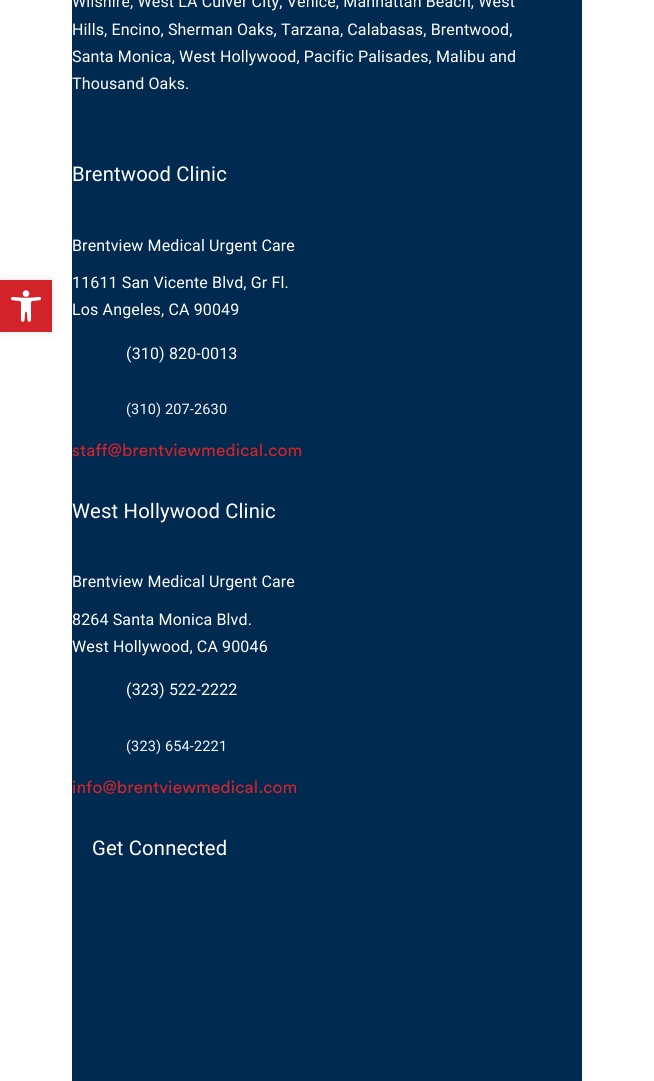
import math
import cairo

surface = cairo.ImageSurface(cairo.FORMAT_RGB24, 654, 1081)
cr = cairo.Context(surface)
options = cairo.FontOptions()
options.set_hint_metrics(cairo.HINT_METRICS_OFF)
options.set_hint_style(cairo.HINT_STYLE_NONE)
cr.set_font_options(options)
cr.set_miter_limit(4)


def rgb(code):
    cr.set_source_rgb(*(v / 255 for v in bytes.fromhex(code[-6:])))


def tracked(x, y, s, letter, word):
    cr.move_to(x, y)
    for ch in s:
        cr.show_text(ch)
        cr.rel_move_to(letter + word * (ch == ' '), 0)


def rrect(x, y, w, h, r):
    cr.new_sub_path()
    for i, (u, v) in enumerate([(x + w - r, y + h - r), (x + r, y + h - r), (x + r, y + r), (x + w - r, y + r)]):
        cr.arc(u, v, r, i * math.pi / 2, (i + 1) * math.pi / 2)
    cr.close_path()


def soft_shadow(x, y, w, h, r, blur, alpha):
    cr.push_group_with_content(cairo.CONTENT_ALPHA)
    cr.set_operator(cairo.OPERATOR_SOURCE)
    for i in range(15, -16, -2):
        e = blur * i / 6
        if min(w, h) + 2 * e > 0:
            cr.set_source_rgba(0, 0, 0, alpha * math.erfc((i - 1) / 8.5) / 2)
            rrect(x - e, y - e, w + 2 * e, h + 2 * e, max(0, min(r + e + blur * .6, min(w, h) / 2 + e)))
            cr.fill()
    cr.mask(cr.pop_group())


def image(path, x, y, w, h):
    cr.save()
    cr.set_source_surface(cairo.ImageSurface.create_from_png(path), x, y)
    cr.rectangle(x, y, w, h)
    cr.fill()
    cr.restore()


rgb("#ffffff")
cr.paint()
rgb("#000000")
soft_shadow(0, 280, 52, 52, 0, 5, 0.1)
rgb("#d2232a")
cr.rectangle(0, 280, 52, 52)
cr.fill()
image("img/1.png", 11, 290, 30, 32)
rgb("#002a4f")
cr.rectangle(72, 0, 510, 1081)
cr.fill()
cr.select_font_face("Roboto")
cr.set_font_size(16)
rgb("#ffffff")
for x, y, s in [
    (72, 7, "Wilshire, West LA Culver City, Venice, Manhattan Beach, West"),
    (72, 35, "Hills, Encino, Sherman Oaks, Tarzana, Calabasas, Brentwood,"),
    (72, 62, "Santa Monica, West Hollywood, Pacific Palisades, Malibu and"),
    (72, 89, "Thousand Oaks."),
]:
    tracked(x, y, s, 0.15, 0)
cr.set_font_size(20.25)
tracked(72, 181, "Brentwood Clinic", 0.15, 0)
cr.set_font_size(16)
for x, y, s in [
    (72, 251, "Brentview Medical Urgent Care"),
    (72, 288, "11611 San Vicente Blvd, Gr Fl."),
    (72, 315, "Los Angeles, CA 90049"),
    (126, 359, "(310) 820-0013"),
]:
    tracked(x, y, s, 0.15, 0)
cr.set_font_size(14.5)
rgb("#f3f7ff")
tracked(126, 414, "(310) 207-2630", 0.15, 0)
cr.select_font_face("Circular")
cr.set_font_size(17.25)
rgb("#d2232a")
tracked(72, 456, "staff@brentviewmedical.com", 0.15, 0)
cr.select_font_face("Roboto")
cr.set_font_size(20.25)
rgb("#ffffff")
tracked(72, 518, "West Hollywood Clinic", 0.15, 0)
cr.set_font_size(16)
for x, y, s in [
    (72, 587, "Brentview Medical Urgent Care"),
    (72, 625, "8264 Santa Monica Blvd."),
    (72, 652, "West Hollywood, CA 90046"),
    (126, 695, "(323) 522-2222"),
]:
    tracked(x, y, s, 0.15, 0)
cr.set_font_size(14.5)
rgb("#f3f7ff")
tracked(126, 751, "(323) 654-2221", 0.15, 0)
cr.select_font_face("Circular")
cr.set_font_size(17.25)
rgb("#d2232a")
tracked(72, 793, "info@brentviewmedical.com", 0.15, 0)
cr.select_font_face("Roboto")
cr.set_font_size(20.25)
rgb("#ffffff")
tracked(92, 855, "Get Connected", 0.15, 0)
surface.write_to_png("page.png")
